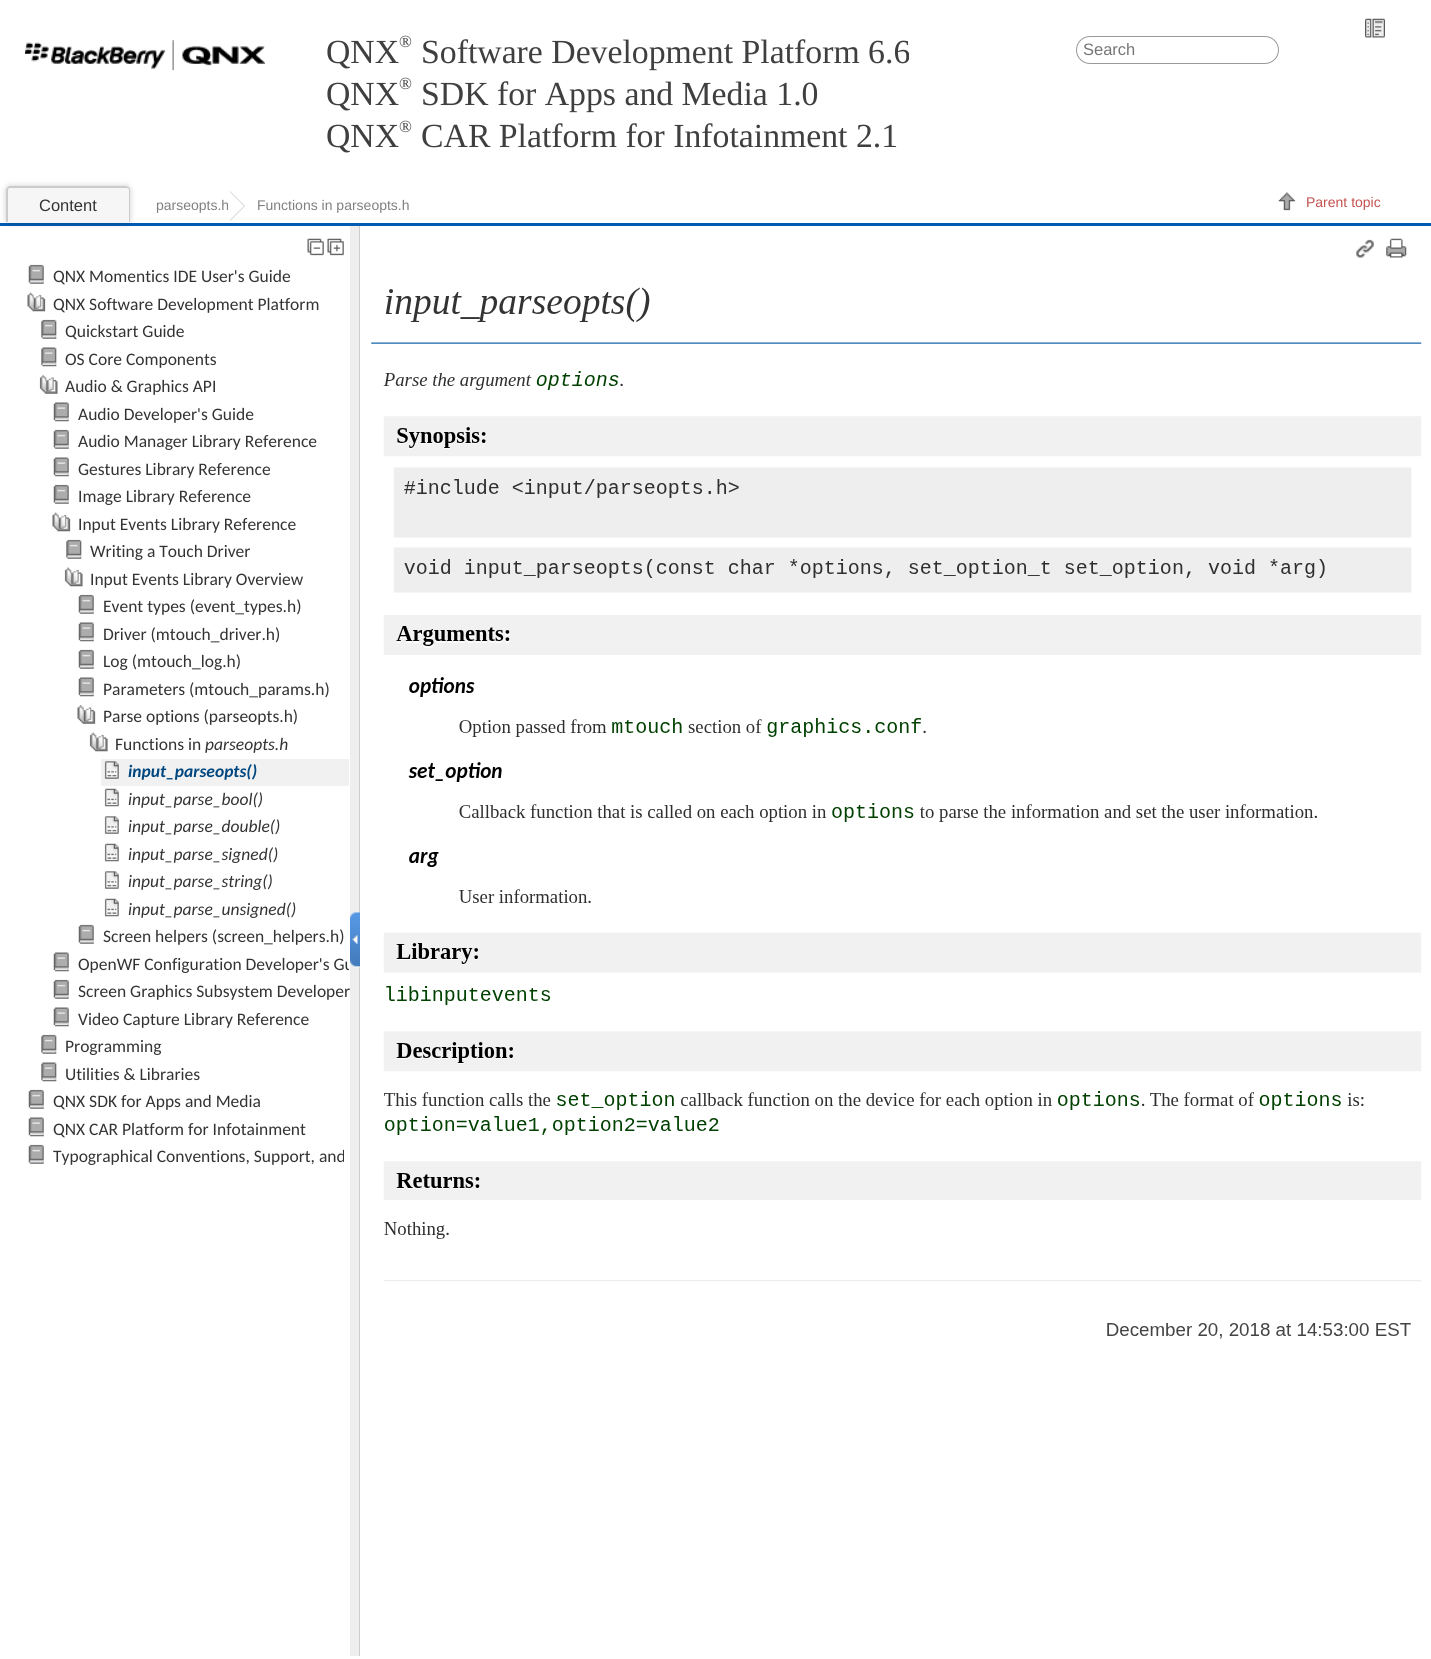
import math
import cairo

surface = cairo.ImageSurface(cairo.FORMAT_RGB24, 1431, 1659)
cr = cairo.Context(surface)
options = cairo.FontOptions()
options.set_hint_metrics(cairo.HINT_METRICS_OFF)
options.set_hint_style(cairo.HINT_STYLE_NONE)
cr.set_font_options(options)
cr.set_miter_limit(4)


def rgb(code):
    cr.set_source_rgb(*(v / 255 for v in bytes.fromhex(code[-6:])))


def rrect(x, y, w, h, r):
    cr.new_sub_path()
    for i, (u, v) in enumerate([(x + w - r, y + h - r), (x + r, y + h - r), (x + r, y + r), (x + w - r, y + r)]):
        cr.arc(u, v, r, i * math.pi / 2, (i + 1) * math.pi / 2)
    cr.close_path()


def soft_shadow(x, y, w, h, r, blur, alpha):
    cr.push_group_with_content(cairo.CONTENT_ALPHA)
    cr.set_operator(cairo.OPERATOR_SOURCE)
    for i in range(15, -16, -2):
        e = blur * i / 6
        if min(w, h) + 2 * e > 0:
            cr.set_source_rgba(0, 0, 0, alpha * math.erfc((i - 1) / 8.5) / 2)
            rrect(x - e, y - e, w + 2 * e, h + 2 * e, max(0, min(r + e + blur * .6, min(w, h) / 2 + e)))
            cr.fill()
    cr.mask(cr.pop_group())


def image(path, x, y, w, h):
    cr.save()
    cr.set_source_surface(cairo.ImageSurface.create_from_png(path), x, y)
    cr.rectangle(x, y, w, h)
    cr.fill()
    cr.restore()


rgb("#ffffff")
cr.paint()
image("img/1.png", 1365, 18, 20, 20)
image("img/2.png", 25, 40, 240, 30)
rrect(1076.5, 36.5, 202, 27, 13.5)
rgb("#999999")
cr.set_line_width(1)
cr.stroke()
rgb("#cccccc")
cr.rectangle(359, 225, 1, 1431)
cr.fill()
rgb("#005cb3")
cr.rectangle(0, 223, 1431, 3)
cr.fill()
rgb("#000000")
soft_shadow(6, 186, 124, 37, 4, 3, 0.2)
rgb("#f6f6f6")
cr.new_path()
cr.move_to(10, 186)
cr.line_to(126, 186)
cr.curve_to(128, 186, 130, 188, 130, 190)
cr.line_to(130, 223)
cr.line_to(6, 223)
cr.line_to(6, 190)
cr.curve_to(6, 188, 8, 186, 10, 186)
cr.close_path()
cr.fill()
rgb("#cccccc")
cr.set_fill_rule(cairo.FILL_RULE_EVEN_ODD)
cr.new_path()
cr.move_to(10, 186)
cr.line_to(126, 186)
cr.curve_to(128, 186, 130, 188, 130, 190)
cr.line_to(130, 222)
cr.line_to(6, 222)
cr.line_to(6, 190)
cr.curve_to(6, 188, 8, 186, 10, 186)
cr.close_path()
cr.move_to(10, 188)
cr.line_to(126, 188)
cr.curve_to(128, 188, 129, 189, 129, 190)
cr.line_to(129, 222)
cr.line_to(8, 222)
cr.line_to(8, 190)
cr.curve_to(8, 189, 9, 188, 10, 188)
cr.close_path()
cr.fill()
cr.set_fill_rule(cairo.FILL_RULE_WINDING)
cr.new_path()
cr.move_to(230, 221)
cr.line_to(230, 191)
cr.line_to(245, 206)
cr.close_path()
cr.fill()
rgb("#ffffff")
cr.new_path()
cr.move_to(229, 221)
cr.line_to(229, 191)
cr.line_to(244, 206)
cr.close_path()
cr.fill()
image("img/3.png", 1278, 192, 18, 19)
image("img/4.png", 307, 238, 17, 18)
image("img/5.png", 327, 238, 17, 18)
image("img/6.png", 28, 264, 16, 20)
image("img/7.png", 27, 292, 19, 20)
image("img/8.png", 41, 319, 16, 20)
image("img/9.png", 41, 347, 16, 20)
image("img/10.png", 39, 374, 19, 20)
image("img/11.png", 53, 402, 16, 20)
image("img/6.png", 53, 429, 16, 20)
image("img/11.png", 53, 457, 16, 20)
image("img/6.png", 53, 484, 16, 20)
image("img/12.png", 52, 512, 19, 20)
image("img/8.png", 66, 539, 16, 20)
image("img/13.png", 64, 567, 19, 20)
image("img/6.png", 78, 594, 16, 20)
image("img/11.png", 78, 622, 16, 20)
image("img/6.png", 78, 649, 16, 20)
image("img/11.png", 78, 677, 16, 20)
image("img/14.png", 77, 704, 19, 20)
image("img/15.png", 89, 732, 19, 20)
rgb("#f1f1f1")
cr.rectangle(101, 759, 248, 27)
cr.fill()
image("img/16.png", 104, 761, 15, 18)
image("img/17.png", 104, 788, 15, 19)
image("img/18.png", 104, 816, 15, 18)
image("img/17.png", 104, 843, 15, 19)
image("img/18.png", 104, 871, 15, 18)
image("img/17.png", 104, 898, 15, 19)
image("img/6.png", 78, 924, 16, 20)
image("img/11.png", 53, 952, 16, 20)
image("img/6.png", 53, 979, 16, 20)
image("img/11.png", 53, 1007, 16, 20)
image("img/8.png", 41, 1034, 16, 20)
image("img/9.png", 41, 1062, 16, 20)
image("img/6.png", 28, 1089, 16, 20)
image("img/11.png", 28, 1117, 16, 20)
image("img/6.png", 28, 1144, 16, 20)
rgb("#eeeeee")
cr.rectangle(350, 226, 9, 1430)
cr.fill()
image("img/19.png", 350, 912, 10, 56)
image("img/20.png", 371, 238, 1051, 1101)
cr.select_font_face("Liberation Serif")
cr.set_font_size(33.75)
rgb("#3f3f3f")
cr.move_to(326, 63)
cr.show_text("QNX")
cr.set_font_size(17)
cr.move_to(399, 47)
cr.show_text("®")
cr.set_font_size(33.75)
cr.move_to(421, 63)
cr.show_text("Software Development Platform 6.6")
cr.move_to(326, 105)
cr.show_text("QNX")
cr.set_font_size(17)
cr.move_to(399, 89)
cr.show_text("®")
cr.set_font_size(33.75)
cr.move_to(421, 105)
cr.show_text("SDK for Apps and Media 1.0")
cr.move_to(326, 147)
cr.show_text("QNX")
cr.set_font_size(17)
cr.move_to(399, 132)
cr.show_text("®")
cr.set_font_size(33.75)
cr.move_to(421, 147)
cr.show_text("CAR Platform for Infotainment 2.1")
cr.select_font_face("Liberation Sans")
cr.set_font_size(16.5)
rgb("#757575")
cr.move_to(1083, 55)
cr.show_text("Search")
rgb("#333333")
cr.move_to(39, 211)
cr.show_text("Content")
cr.set_font_size(14)
rgb("#808080")
cr.move_to(156, 210)
cr.show_text("parseopts.h")
cr.move_to(257, 210)
cr.show_text("Functions in parseopts.h")
rgb("#c45050")
cr.move_to(1306, 207)
cr.show_text("Parent topic")
cr.select_font_face("Carlito")
cr.set_font_size(17.5)
rgb("#333333")
for x, y, s in [
    (53, 282, "QNX Momentics IDE User's Guide"),
    (53, 310, "QNX Software Development Platform"),
    (65, 337, "Quickstart Guide"),
    (65, 365, "OS Core Components"),
    (65, 392, "Audio & Graphics API"),
    (78, 420, "Audio Developer's Guide"),
    (78, 447, "Audio Manager Library Reference"),
    (78, 475, "Gestures Library Reference"),
    (78, 502, "Image Library Reference"),
    (78, 530, "Input Events Library Reference"),
    (90, 557, "Writing a Touch Driver"),
    (90, 585, "Input Events Library Overview"),
    (103, 612, "Event types (event_types.h)"),
    (103, 640, "Driver (mtouch_driver.h)"),
    (103, 667, "Log (mtouch_log.h)"),
    (103, 695, "Parameters (mtouch_params.h)"),
    (103, 722, "Parse options (parseopts.h)"),
    (115, 750, "Functions in"),
]:
    cr.move_to(x, y)
    cr.show_text(s)
cr.select_font_face("Carlito", cairo.FONT_SLANT_ITALIC)
cr.move_to(205, 750)
cr.show_text("parseopts.h")
cr.select_font_face("Carlito", cairo.FONT_SLANT_ITALIC, cairo.FONT_WEIGHT_BOLD)
rgb("#004780")
cr.move_to(128, 777)
cr.show_text("input_parseopts()")
cr.select_font_face("Carlito", cairo.FONT_SLANT_ITALIC)
rgb("#333333")
for x, y, s in [
    (128, 805, "input_parse_bool()"),
    (128, 832, "input_parse_double()"),
    (128, 860, "input_parse_signed()"),
    (128, 887, "input_parse_string()"),
    (128, 915, "input_parse_unsigned()"),
]:
    cr.move_to(x, y)
    cr.show_text(s)
cr.select_font_face("Carlito")
cr.move_to(103, 942)
cr.show_text("Screen helpers (screen_helpers.h)")
cr.save()
cr.rectangle(1, 226, 348, 1432)
cr.clip()
cr.move_to(78, 970)
cr.show_text("OpenWF Configuration Developer's Gu")
cr.restore()
for x, y, s in [
    (78, 997, "Screen Graphics Subsystem Developer"),
    (78, 1025, "Video Capture Library Reference"),
    (65, 1052, "Programming"),
    (65, 1080, "Utilities & Libraries"),
    (53, 1107, "QNX SDK for Apps and Media"),
    (53, 1135, "QNX CAR Platform for Infotainment"),
    (53, 1162, "Typographical Conventions, Support, and"),
]:
    cr.move_to(x, y)
    cr.show_text(s)
surface.write_to_png("page.png")
